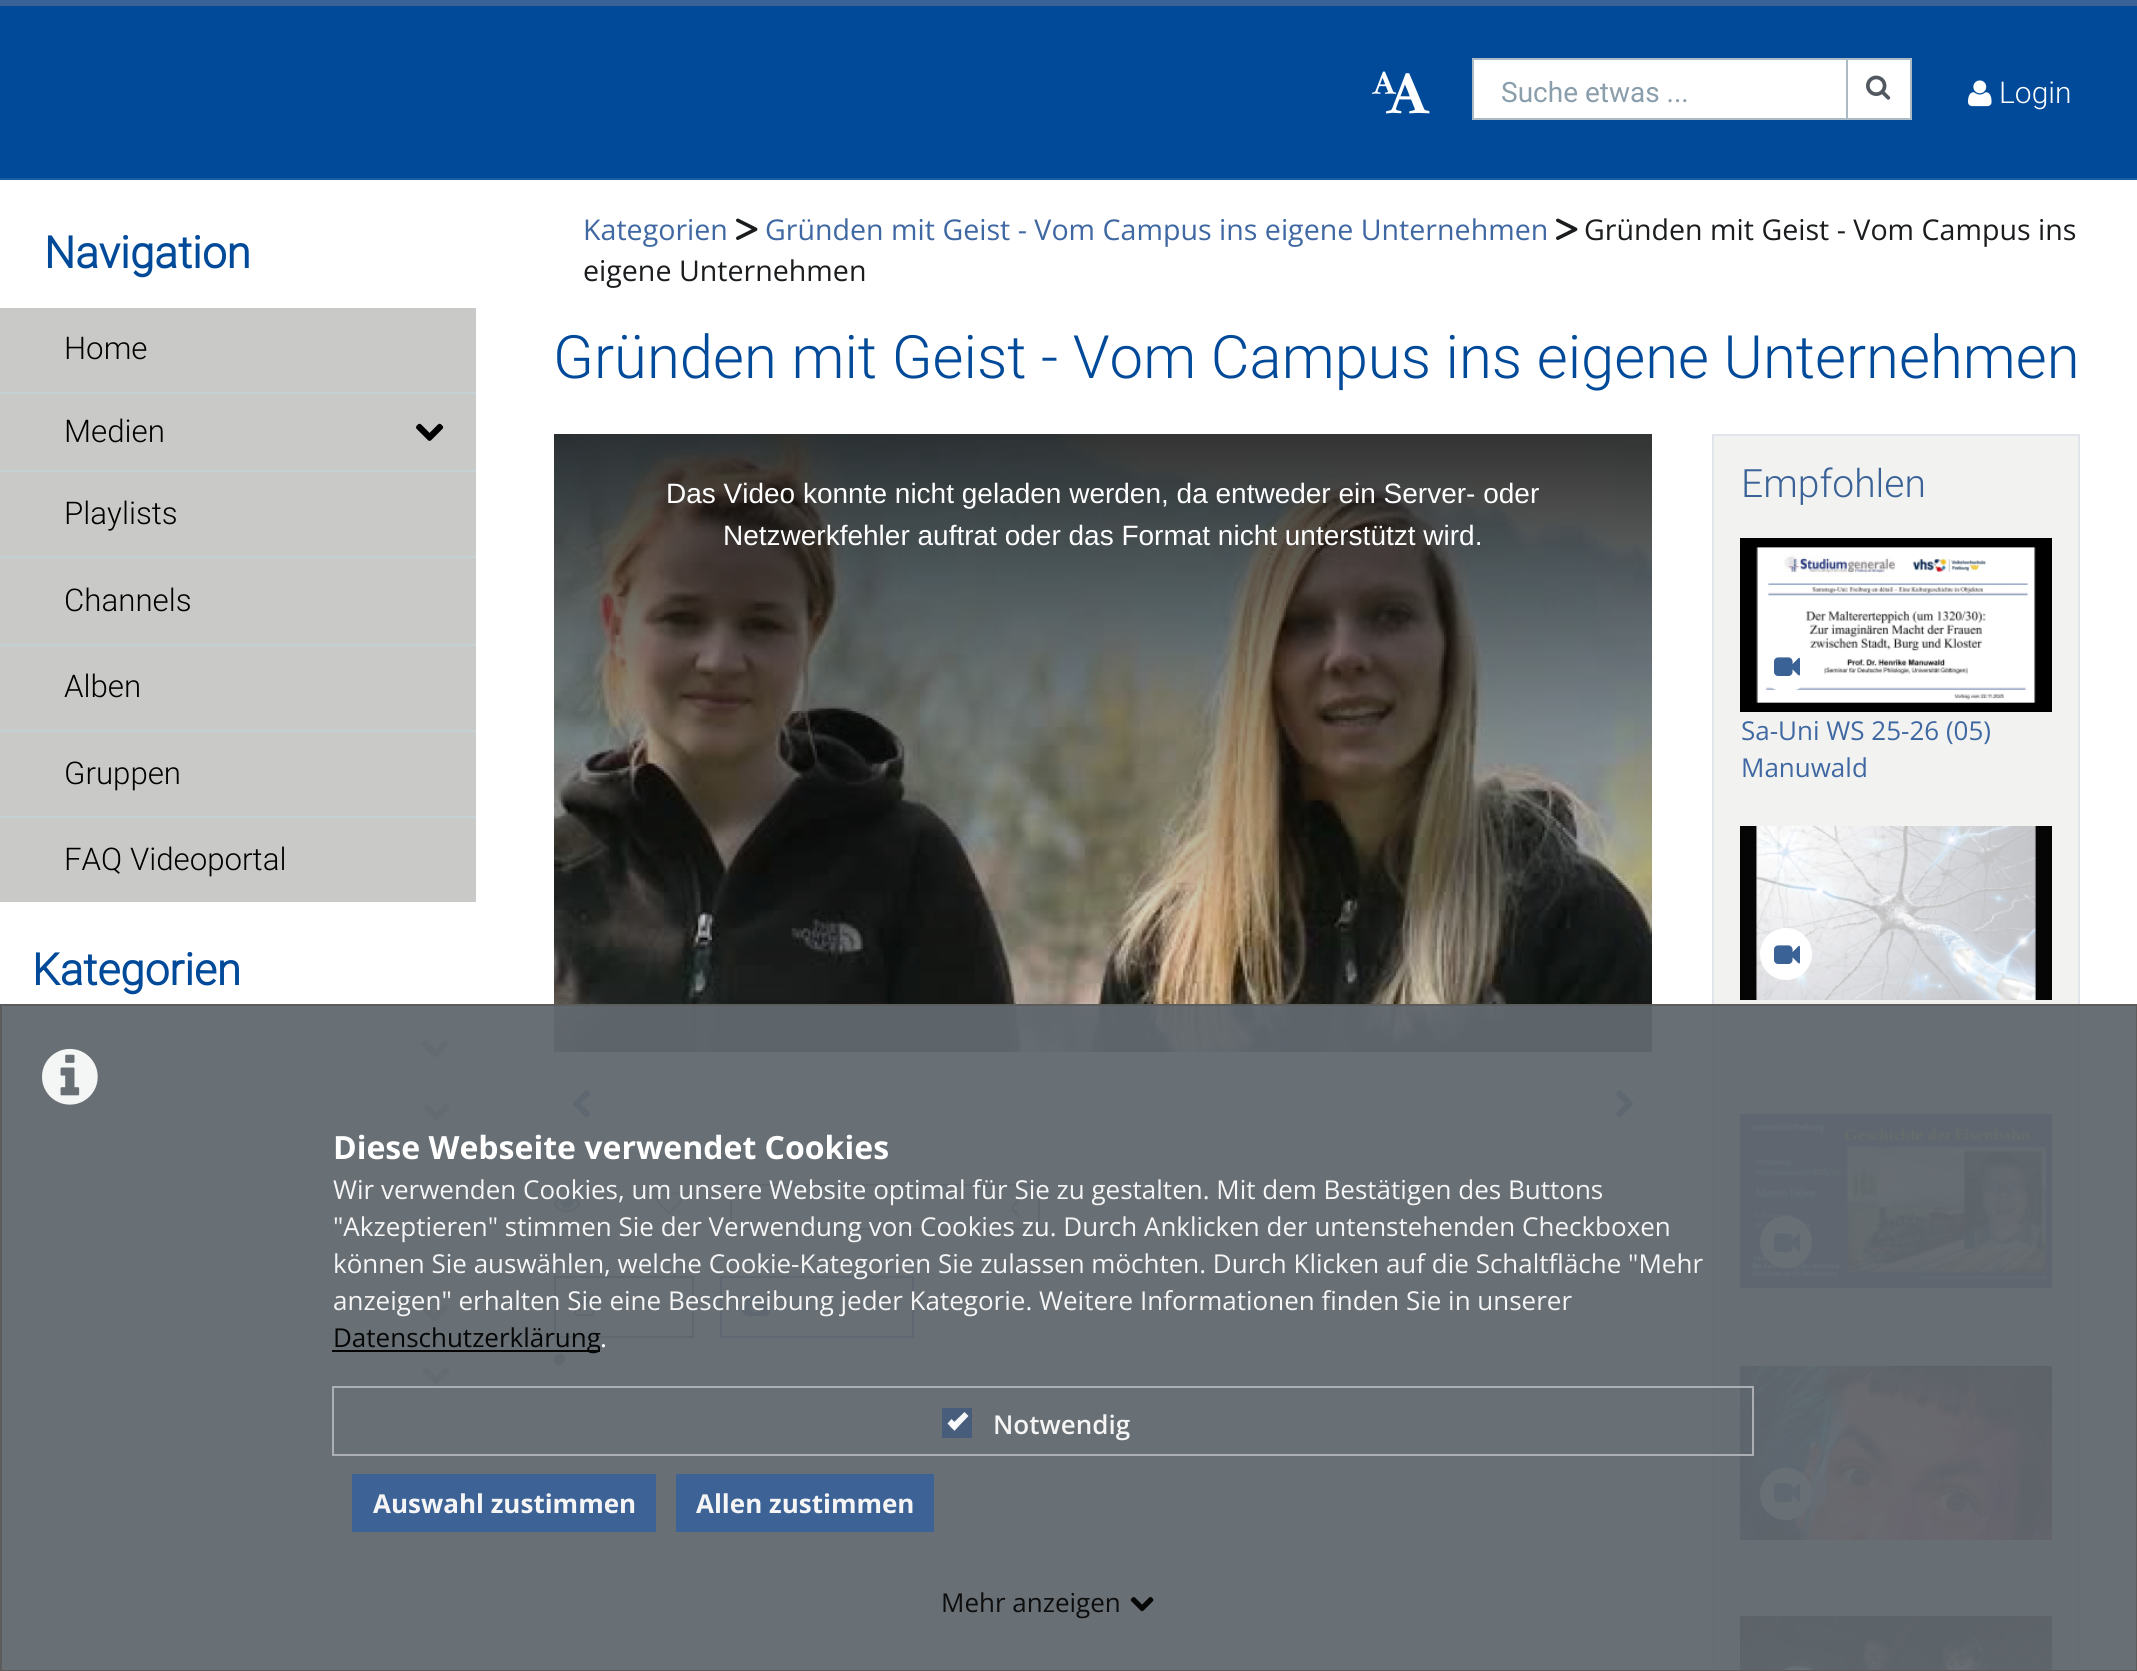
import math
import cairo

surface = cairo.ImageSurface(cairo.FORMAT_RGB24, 2137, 1671)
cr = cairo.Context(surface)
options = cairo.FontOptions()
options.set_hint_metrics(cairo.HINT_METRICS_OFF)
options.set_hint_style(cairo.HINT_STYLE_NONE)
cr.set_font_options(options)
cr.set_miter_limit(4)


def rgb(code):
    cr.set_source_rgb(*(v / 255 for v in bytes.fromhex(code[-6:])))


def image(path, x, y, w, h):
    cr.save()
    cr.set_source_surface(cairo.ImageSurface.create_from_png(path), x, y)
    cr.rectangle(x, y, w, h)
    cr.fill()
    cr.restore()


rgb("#ffffff")
cr.paint()
for x, y, w, h, color in [
    (0, 6, 2137, 172, "#004a99"),
    (0, 178, 2137, 2, "#1a5ca3"),
    (0, 0, 2137, 6, "#3b6297"),
]:
    rgb(color)
    cr.rectangle(x, y, w, h)
    cr.fill()
image("img/1.png", 1372, 71, 25, 23)
image("img/2.png", 1386, 73, 44, 41)
rgb("#ffffff")
cr.rectangle(1473, 59, 374, 60)
cr.fill_preserve()
rgb("#acbbc3")
cr.stroke()
rgb("#ffffff")
cr.rectangle(1847, 59, 64, 60)
cr.fill_preserve()
rgb("#acbbc3")
cr.stroke()
image("img/3.png", 1866, 75, 25, 25)
image("img/4.png", 1968, 80, 24, 27)
for x, y, w, h, color in [
    (0, 308, 476, 84, "#c9cac8"),
    (0, 392, 476, 2, "#c5d0d5"),
    (0, 394, 476, 76, "#c9cac8"),
]:
    rgb(color)
    cr.rectangle(x, y, w, h)
    cr.fill()
image("img/5.png", 416, 423, 28, 18)
for x, y, w, h, color in [
    (0, 470, 476, 2, "#c5d0d5"),
    (0, 472, 476, 84, "#c9cac8"),
    (0, 556, 476, 2, "#c5d0d5"),
    (0, 558, 476, 86, "#c9cac8"),
    (0, 644, 476, 2, "#c5d0d5"),
    (0, 646, 476, 84, "#c9cac8"),
    (0, 730, 476, 2, "#c5d0d5"),
    (0, 732, 476, 84, "#c9cac8"),
    (0, 816, 476, 2, "#c5d0d5"),
    (0, 818, 476, 84, "#c9cac8"),
]:
    rgb(color)
    cr.rectangle(x, y, w, h)
    cr.fill()
image("img/6.png", 421, 1040, 28, 18)
image("img/7.png", 422, 1103, 28, 18)
image("img/8.png", 421, 1304, 28, 18)
image("img/9.png", 422, 1367, 28, 18)
image("img/10.png", 736, 218, 22, 22)
image("img/10.png", 1556, 218, 22, 22)
image("img/11.png", 554, 434, 1098, 618)
image("img/12.png", 572, 1090, 18, 28)
image("img/13.png", 1616, 1090, 18, 28)
rgb("#f2f3f1")
cr.rectangle(1713, 435, 366, 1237)
cr.fill_preserve()
rgb("#dfe5eb")
cr.stroke()
image("img/14.png", 1740, 538, 312, 174)
rgb("#ffffff")
cr.arc(1786, 666, 26, 0, 2 * math.pi)
cr.fill()
image("img/15.png", 1774, 657, 26, 19)
image("img/16.png", 1740, 826, 312, 174)
cr.arc(1786, 954, 26, 0, 2 * math.pi)
cr.fill()
image("img/15.png", 1774, 945, 26, 19)
image("img/17.png", 1740, 1114, 312, 174)
cr.arc(1786, 1242, 26, 0, 2 * math.pi)
cr.fill()
image("img/15.png", 1774, 1233, 26, 19)
image("img/18.png", 1740, 1366, 312, 174)
cr.arc(1786, 1494, 26, 0, 2 * math.pi)
cr.fill()
image("img/15.png", 1774, 1483, 26, 19)
image("img/19.png", 1740, 1616, 312, 55)
image("img/20.png", 554, 1195, 26, 17)
image("img/21.png", 656, 1191, 26, 23)
cr.rectangle(731, 1185, 308, 44)
rgb("#475d7b")
cr.stroke()
cr.new_path()
cr.move_to(1012.5, 1208)
cr.line_to(1020, 1215.5)
cr.line_to(1019, 1217)
cr.line_to(1011, 1209.5)
cr.close_path()
cr.move_to(1019, 1199)
cr.line_to(1020, 1200)
cr.line_to(1012.5, 1208)
cr.line_to(1011, 1206.5)
cr.close_path()
cr.fill()
cr.rectangle(555, 1277, 138, 60)
cr.stroke()
image("img/22.png", 574, 1293, 25, 23)
cr.rectangle(721, 1277, 192, 60)
rgb("#3b6297")
cr.stroke()
image("img/23.png", 742, 1295, 28, 21)
image("img/24.png", 554, 1353, 12, 12)
cr.set_source_rgba(0.38, 0.408, 0.435, 0.95)
cr.rectangle(0, 1004, 2137, 667)
cr.fill()
cr.rectangle(1, 1005, 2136, 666)
cr.set_source_rgba(0.361, 0.361, 0.361, 0.95)
cr.stroke()
image("img/25.png", 42, 1048, 56, 57)
cr.set_source_rgba(0, 0, 0, 0.95)
cr.rectangle(332, 1350, 268, 2)
cr.fill()
cr.rectangle(333, 1387, 1420, 68)
cr.set_source_rgba(0.69, 0.702, 0.722, 0.95)
cr.stroke()
cr.set_source_rgba(0.463, 0.463, 0.463, 0.28)
cr.rectangle(944, 1410, 26, 26)
cr.fill()
cr.new_path()
cr.move_to(948, 1423)
cr.line_to(954, 1429)
cr.line_to(966, 1414)
cr.set_source_rgba(1, 1, 1, 0.95)
cr.set_line_width(4.8)
cr.stroke()
cr.set_source_rgba(0.278, 0.365, 0.482, 0.95)
cr.rectangle(943, 1409, 28, 28)
cr.fill_preserve()
rgb("#475d7b")
cr.set_line_width(2)
cr.stroke()
cr.set_source_rgba(1, 1, 1, 0.95)
cr.new_path()
cr.move_to(964.5, 1412)
cr.line_to(968.5, 1416)
cr.line_to(954.5, 1430.5)
cr.line_to(950, 1426)
cr.close_path()
cr.fill()
cr.new_path()
cr.move_to(951.5, 1419)
cr.line_to(958.5, 1426)
cr.line_to(954.5, 1430.5)
cr.line_to(947.5, 1423.5)
cr.close_path()
cr.fill()
cr.set_source_rgba(0.231, 0.384, 0.592, 0.95)
cr.rectangle(352, 1474, 304, 58)
cr.fill()
cr.rectangle(676, 1474, 258, 58)
cr.fill()
image("img/26.png", 1130, 1597, 24, 15)
cr.select_font_face("Roboto")
cr.set_font_size(28)
rgb("#8a9eac")
cr.move_to(1501, 102)
cr.show_text("Suche etwas ...")
cr.select_font_face("Roboto Light")
cr.set_font_size(30)
rgb("#ffffff")
cr.move_to(1999, 103)
cr.show_text("Login")
cr.select_font_face("Roboto", cairo.FONT_SLANT_NORMAL, cairo.FONT_WEIGHT_BOLD)
cr.set_font_size(44)
rgb("#004a99")
cr.move_to(44, 268)
cr.show_text("Navigation")
cr.select_font_face("Roboto Light")
cr.set_font_size(31.25)
rgb("#000000")
for x, y, s in [
    (64, 359, "Home"),
    (64, 442, "Medien"),
    (64, 524, "Playlists"),
    (64, 611, "Channels"),
    (64, 697, "Alben"),
    (64, 784, "Gruppen"),
    (64, 870, "FAQ Videoportal"),
]:
    cr.move_to(x, y)
    cr.show_text(s)
cr.select_font_face("Roboto", cairo.FONT_SLANT_NORMAL, cairo.FONT_WEIGHT_BOLD)
cr.set_font_size(44)
rgb("#004a99")
cr.move_to(32, 985)
cr.show_text("Kategorien")
cr.select_font_face("Open Sans")
cr.set_font_size(28.6)
rgb("#3f68a2")
cr.move_to(583, 240)
cr.show_text("Kategorien")
cr.move_to(765, 240)
cr.show_text("Gründen mit Geist - Vom Campus ins eigene Unternehmen")
rgb("#1a1c1e")
cr.move_to(1584, 240)
cr.show_text("Gründen mit Geist - Vom Campus ins")
cr.move_to(583, 281)
cr.show_text("eigene Unternehmen")
cr.select_font_face("Roboto Light")
cr.set_font_size(59.8)
rgb("#004a99")
cr.move_to(553, 378)
cr.show_text("Gründen mit Geist - Vom Campus ins eigene Unternehmen")
cr.select_font_face("Liberation Sans")
cr.set_font_size(28)
rgb("#ffffff")
cr.move_to(666, 503)
cr.show_text("Das Video konnte nicht geladen werden, da entweder ein Server- oder")
cr.move_to(723, 545)
cr.show_text("Netzwerkfehler auftrat oder das Format nicht unterstützt wird.")
cr.select_font_face("Roboto Light")
cr.set_font_size(39)
rgb("#3b6297")
cr.move_to(1741, 497)
cr.show_text("Empfohlen")
cr.select_font_face("Open Sans")
cr.set_font_size(26)
rgb("#3f68a2")
cr.move_to(1741, 740)
cr.show_text("Sa-Uni WS 25-26 (05)")
cr.move_to(1741, 777)
cr.show_text("Manuwald")
cr.select_font_face("Open Sans", cairo.FONT_SLANT_NORMAL, cairo.FONT_WEIGHT_BOLD)
cr.set_font_size(32)
rgb("#ffffff")
cr.move_to(333, 1159)
cr.show_text("Diese Webseite verwendet Cookies")
cr.select_font_face("Open Sans")
cr.set_font_size(26)
rgb("#f5f5f5")
for x, y, s in [
    (333, 1199, "Wir verwenden Cookies, um unsere Website optimal für Sie zu gestalten. Mit dem Bestätigen des Buttons"),
    (333, 1236, "\"Akzeptieren\" stimmen Sie der Verwendung von Cookies zu. Durch Anklicken der untenstehenden Checkboxen"),
    (333, 1273, "können Sie auswählen, welche Cookie-Kategorien Sie zulassen möchten. Durch Klicken auf die Schaltfläche \"Mehr"),
    (333, 1310, "anzeigen\" erhalten Sie eine Beschreibung jeder Kategorie. Weitere Informationen finden Sie in unserer"),
]:
    cr.move_to(x, y)
    cr.show_text(s)
rgb("#050606")
cr.move_to(333, 1347)
cr.show_text("Datenschutzerklärung")
rgb("#ffffff")
cr.move_to(600, 1347)
cr.show_text(".")
cr.select_font_face("Open Sans SemiBold")
rgb("#f5f5f5")
cr.move_to(993, 1434)
cr.show_text("Notwendig")
cr.select_font_face("Open Sans", cairo.FONT_SLANT_NORMAL, cairo.FONT_WEIGHT_BOLD)
cr.move_to(373, 1513)
cr.show_text("Auswahl zustimmen")
cr.move_to(696, 1513)
cr.show_text("Allen zustimmen")
cr.select_font_face("Open Sans")
rgb("#0d0d0d")
cr.move_to(941, 1612)
cr.show_text("Mehr anzeigen")
surface.write_to_png("page.png")
